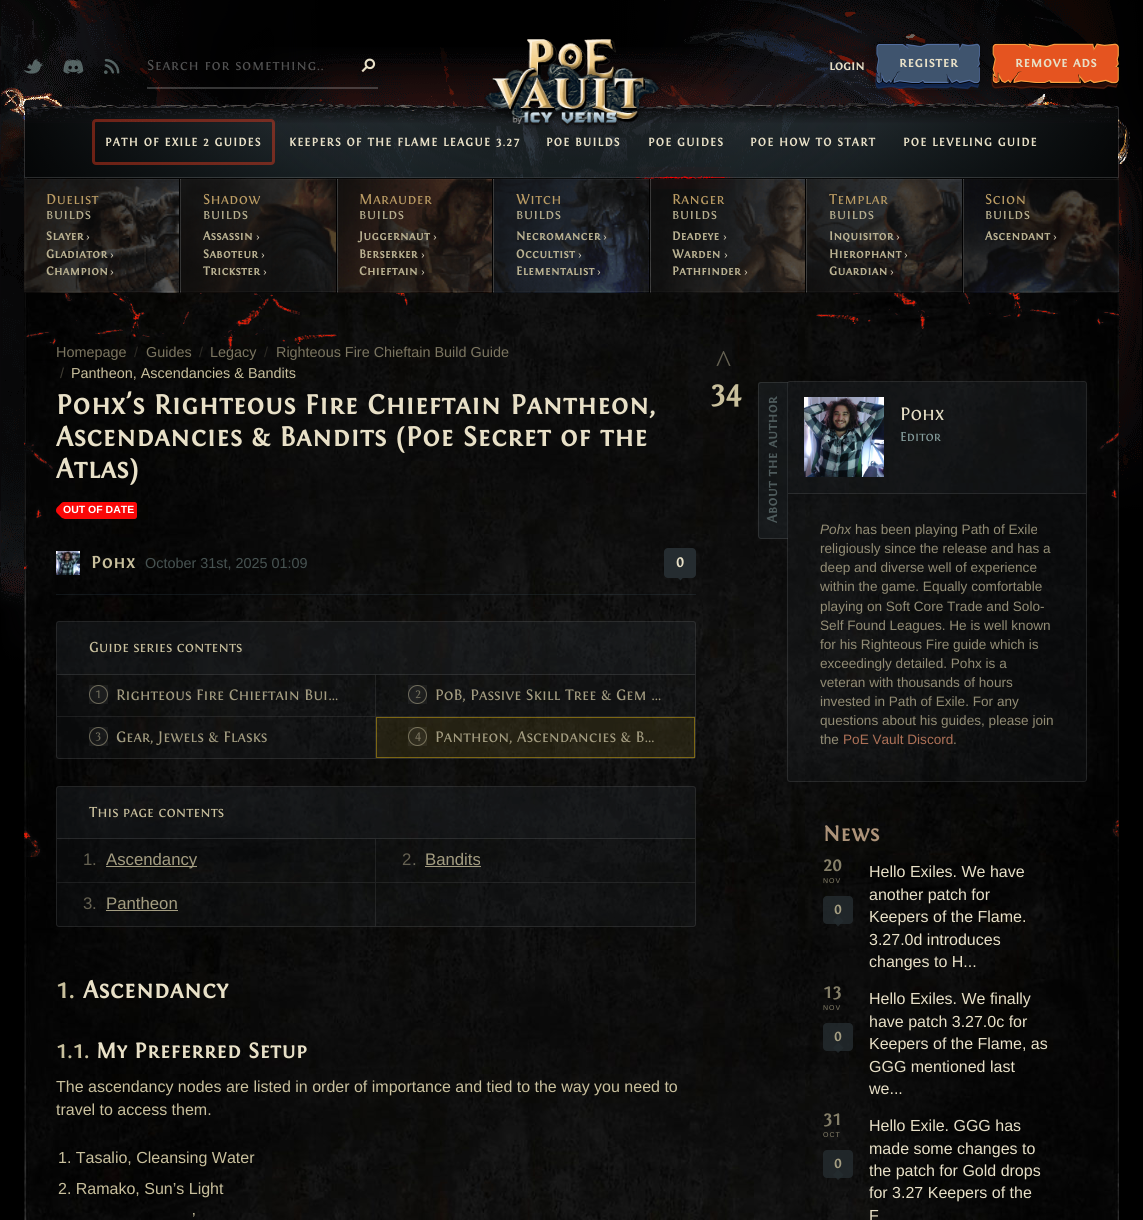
import math
import cairo

surface = cairo.ImageSurface(cairo.FORMAT_RGB24, 1143, 1220)
cr = cairo.Context(surface)
options = cairo.FontOptions()
options.set_hint_metrics(cairo.HINT_METRICS_OFF)
options.set_hint_style(cairo.HINT_STYLE_NONE)
cr.set_font_options(options)
cr.set_miter_limit(4)


def rgb(code):
    cr.set_source_rgb(*(v / 255 for v in bytes.fromhex(code[-6:])))


def tracked(x, y, s, letter, word):
    cr.move_to(x, y)
    for ch in s:
        cr.show_text(ch)
        cr.rel_move_to(letter + word * (ch == ' '), 0)


def rrect(x, y, w, h, r):
    cr.new_sub_path()
    for i, (u, v) in enumerate([(x + w - r, y + h - r), (x + r, y + h - r), (x + r, y + r), (x + w - r, y + r)]):
        cr.arc(u, v, r, i * math.pi / 2, (i + 1) * math.pi / 2)
    cr.close_path()


def soft_shadow(x, y, w, h, r, blur, alpha):
    cr.push_group_with_content(cairo.CONTENT_ALPHA)
    cr.set_operator(cairo.OPERATOR_SOURCE)
    for i in range(15, -16, -2):
        e = blur * i / 6
        if min(w, h) + 2 * e > 0:
            cr.set_source_rgba(0, 0, 0, alpha * math.erfc((i - 1) / 8.5) / 2)
            rrect(x - e, y - e, w + 2 * e, h + 2 * e, max(0, min(r + e + blur * .6, min(w, h) / 2 + e)))
            cr.fill()
    cr.mask(cr.pop_group())


def image(path, x, y, w, h):
    cr.save()
    cr.set_source_surface(cairo.ImageSurface.create_from_png(path), x, y)
    cr.rectangle(x, y, w, h)
    cr.fill()
    cr.restore()


rgb("#000000")
cr.paint()
image("img/1.png", 0, 0, 318, 661)
image("img/3.png", 231, 47, 682, 60)
image("img/2.png", 530, 0, 612, 509)
image("img/8.png", 875, 43, 105, 47)
image("img/9.png", 991, 43, 128, 47)
cr.save()
cr.set_fill_rule(cairo.FILL_RULE_EVEN_ODD)
cr.new_path()
cr.move_to(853, 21)
cr.line_to(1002, 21)
cr.line_to(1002, 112)
cr.line_to(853, 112)
cr.close_path()
cr.move_to(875, 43)
cr.line_to(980, 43)
cr.line_to(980, 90)
cr.line_to(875, 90)
cr.close_path()
cr.clip()
soft_shadow(875, 43, 105, 47, 0, 7, 0.4)
cr.restore()
image("img/10.png", 0, 87, 64, 35)
image("img/15.png", 965, 93, 165, 71)
image("img/11.png", 25, 107, 1093, 72)
cr.set_source_rgba(1, 1, 1, 0.15)
cr.rectangle(25, 177, 1093, 1)
cr.fill()
image("img/13.png", 276, 107, 591, 71)
image("img/12.png", 25, 101, 1093, 22)
image("img/4.png", 484, 39, 177, 89)
image("img/5.png", 24, 59, 19, 15)
image("img/6.png", 63, 59, 21, 15)
image("img/7.png", 104, 59, 16, 15)
cr.set_source_rgba(1, 1, 1, 0.2)
cr.rectangle(147, 88, 231, 1)
cr.fill()
cr.rectangle(147, 87, 231, 1)
cr.fill()
cr.set_source_rgba(1, 1, 1, 0.15)
cr.new_path()
cr.move_to(1119, 107)
cr.line_to(1119, 179)
cr.line_to(1118, 178)
cr.line_to(1118, 107)
cr.close_path()
cr.fill()
cr.set_source_rgba(0, 0, 0, 0.5)
cr.new_path()
cr.move_to(1119, 179)
cr.line_to(24, 179)
cr.line_to(25, 178)
cr.line_to(1118, 178)
cr.close_path()
cr.fill()
cr.set_source_rgba(1, 1, 1, 0.15)
cr.new_path()
cr.move_to(24, 179)
cr.line_to(24, 107)
cr.line_to(25, 107)
cr.line_to(25, 178)
cr.close_path()
cr.fill()
rrect(93.5, 120.5, 180, 43, 2.5)
cr.set_source_rgba(1, 0.251, 0.122, 0.4)
cr.set_line_width(3)
cr.stroke()
image("img/16.png", 24, 179, 1095, 113)
cr.set_source_rgba(1, 1, 1, 0.1)
cr.rectangle(24, 179, 1095, 1)
cr.fill()
rgb("#000000")
cr.rectangle(24, 292, 1095, 1)
cr.fill()
cr.set_source_rgba(1, 1, 1, 0.1)
cr.rectangle(24, 291, 1095, 1)
cr.fill()
image("img/20.png", 494, 179, 155, 114)
gradient = cairo.LinearGradient(494, 236, 650, 236)
gradient.add_color_stop_rgba(0, 0.043, 0.043, 0.043, 0.7)
gradient.add_color_stop_rgba(1, 0.043, 0.043, 0.043, 0.2)
cr.set_source(gradient)
cr.rectangle(494, 179, 155, 114)
cr.fill()
rgb("#000000")
cr.rectangle(649, 179, 1, 114)
cr.fill()
cr.set_source_rgba(1, 1, 1, 0.15)
cr.rectangle(650, 179, 1, 114)
cr.fill()
image("img/21.png", 651, 179, 154, 114)
gradient = cairo.LinearGradient(651, 236, 806, 236)
gradient.add_color_stop_rgba(0, 0.043, 0.043, 0.043, 0.7)
gradient.add_color_stop_rgba(1, 0.043, 0.043, 0.043, 0.2)
cr.set_source(gradient)
cr.rectangle(651, 179, 154, 114)
cr.fill()
image("img/14.png", 635, 167, 101, 22)
image("img/17.png", 24, 179, 155, 114)
gradient = cairo.LinearGradient(24, 236, 180, 236)
gradient.add_color_stop_rgba(0, 0.043, 0.043, 0.043, 0.7)
gradient.add_color_stop_rgba(1, 0.043, 0.043, 0.043, 0.2)
cr.set_source(gradient)
cr.rectangle(24, 179, 155, 114)
cr.fill()
rgb("#000000")
cr.rectangle(179, 179, 1, 114)
cr.fill()
cr.set_source_rgba(1, 1, 1, 0.15)
cr.rectangle(180, 179, 1, 114)
cr.fill()
image("img/18.png", 181, 179, 155, 114)
gradient = cairo.LinearGradient(181, 236, 337, 236)
gradient.add_color_stop_rgba(0, 0.043, 0.043, 0.043, 0.7)
gradient.add_color_stop_rgba(1, 0.043, 0.043, 0.043, 0.2)
cr.set_source(gradient)
cr.rectangle(181, 179, 155, 114)
cr.fill()
rgb("#000000")
cr.rectangle(336, 179, 1, 114)
cr.fill()
cr.set_source_rgba(1, 1, 1, 0.15)
cr.rectangle(337, 179, 1, 114)
cr.fill()
image("img/19.png", 338, 179, 154, 114)
gradient = cairo.LinearGradient(338, 236, 493, 236)
gradient.add_color_stop_rgba(0, 0.043, 0.043, 0.043, 0.7)
gradient.add_color_stop_rgba(1, 0.043, 0.043, 0.043, 0.2)
cr.set_source(gradient)
cr.rectangle(338, 179, 154, 114)
cr.fill()
rgb("#000000")
cr.rectangle(492, 179, 1, 114)
cr.fill()
cr.set_source_rgba(1, 1, 1, 0.15)
cr.rectangle(493, 179, 1, 114)
cr.fill()
rgb("#000000")
cr.rectangle(805, 179, 1, 114)
cr.fill()
cr.set_source_rgba(1, 1, 1, 0.15)
cr.rectangle(806, 179, 1, 114)
cr.fill()
image("img/22.png", 807, 179, 155, 114)
gradient = cairo.LinearGradient(807, 236, 963, 236)
gradient.add_color_stop_rgba(0, 0.043, 0.043, 0.043, 0.7)
gradient.add_color_stop_rgba(1, 0.043, 0.043, 0.043, 0.2)
cr.set_source(gradient)
cr.rectangle(807, 179, 155, 114)
cr.fill()
rgb("#000000")
cr.rectangle(962, 179, 1, 114)
cr.fill()
cr.set_source_rgba(1, 1, 1, 0.15)
cr.rectangle(963, 179, 1, 114)
cr.fill()
image("img/23.png", 964, 179, 155, 114)
gradient = cairo.LinearGradient(964, 236, 1119, 236)
gradient.add_color_stop_rgba(0, 0.043, 0.043, 0.043, 0.7)
gradient.add_color_stop_rgba(1, 0.043, 0.043, 0.043, 0.2)
cr.set_source(gradient)
cr.rectangle(964, 179, 155, 114)
cr.fill()
image("img/24.png", 24, 293, 1095, 927)
image("img/25.png", 24, 293, 384, 564)
image("img/26.png", 816, 293, 303, 544)
cr.set_source_rgba(0.518, 0.737, 0.859, 0.1)
cr.rectangle(56, 594, 640, 1)
cr.fill()
rgb("#fa0808")
rrect(63, 502, 74, 17, 2.5)
cr.fill()
cr.new_path()
cr.move_to(67.5, 503.5)
cr.line_to(71, 507)
cr.curve_to(72.5, 509, 72.5, 512, 71, 513.5)
cr.line_to(67.5, 517)
cr.curve_to(65.5, 519, 62.5, 519, 61, 517)
cr.line_to(57.5, 513.5)
cr.curve_to(55.5, 512, 55.5, 509, 57.5, 507)
cr.line_to(61, 503.5)
cr.curve_to(62.5, 501.5, 65.5, 501.5, 67.5, 503.5)
cr.close_path()
cr.fill()
image("img/27.png", 56, 551, 24, 24)
rgb("#252c30")
rrect(664, 548, 32, 30, 4)
cr.fill()
cr.new_path()
cr.move_to(674.5, 574.5)
cr.line_to(680.5, 569)
cr.line_to(686, 574.5)
cr.line_to(680.5, 580.5)
cr.close_path()
cr.fill()
cr.set_source_rgba(0.145, 0.173, 0.188, 0.2)
rrect(56, 621, 640, 138, 3)
cr.fill()
rrect(56.5, 621.5, 639, 137, 2.5)
cr.set_source_rgba(1, 1, 1, 0.1)
cr.set_line_width(1)
cr.stroke()
cr.set_source_rgba(0.145, 0.173, 0.188, 0.2)
cr.rectangle(57, 622, 638, 53)
cr.fill()
cr.set_source_rgba(1, 1, 1, 0.1)
cr.rectangle(57, 674, 638, 1)
cr.fill()
cr.set_source_rgba(1, 1, 1, 0.08)
cr.new_path()
cr.move_to(376, 675)
cr.line_to(376, 717)
cr.line_to(375, 716)
cr.line_to(375, 675)
cr.close_path()
cr.fill()
cr.new_path()
cr.move_to(376, 717)
cr.line_to(57, 717)
cr.line_to(57, 716)
cr.line_to(375, 716)
cr.close_path()
cr.fill()
cr.set_source_rgba(1, 1, 1, 0.05)
cr.rectangle(89, 685, 19, 19)
cr.fill()
cr.arc(98.5, 694.5, 9, 0, 2 * math.pi)
cr.set_source_rgba(0.788, 0.753, 0.616, 0.48)
cr.stroke()
cr.set_source_rgba(1, 1, 1, 0.08)
cr.rectangle(376, 716, 319, 1)
cr.fill()
cr.set_source_rgba(1, 1, 1, 0.05)
cr.rectangle(408, 685, 19, 19)
cr.fill()
cr.arc(417.5, 694.5, 9, 0, 2 * math.pi)
cr.set_source_rgba(0.788, 0.753, 0.616, 0.48)
cr.stroke()
cr.set_source_rgba(1, 1, 1, 0.08)
cr.rectangle(375, 717, 1, 41)
cr.fill()
cr.set_source_rgba(1, 1, 1, 0.05)
cr.rectangle(89, 727, 19, 19)
cr.fill()
cr.arc(98.5, 736.5, 9, 0, 2 * math.pi)
cr.set_source_rgba(0.788, 0.753, 0.616, 0.48)
cr.stroke()
cr.set_source_rgba(1, 0.808, 0.071, 0.08)
cr.rectangle(376, 717, 319, 41)
cr.fill()
cr.rectangle(376.5, 717.5, 318, 40)
cr.set_source_rgba(1, 0.808, 0.071, 0.4)
cr.stroke()
cr.set_source_rgba(1, 1, 1, 0.05)
cr.rectangle(408, 727, 19, 19)
cr.fill()
cr.arc(417.5, 736.5, 9, 0, 2 * math.pi)
cr.set_source_rgba(0.788, 0.753, 0.616, 0.48)
cr.stroke()
cr.set_source_rgba(0.145, 0.173, 0.188, 0.2)
rrect(56, 786, 640, 141, 3)
cr.fill()
rrect(56.5, 786.5, 639, 140, 2.5)
cr.set_source_rgba(1, 1, 1, 0.1)
cr.stroke()
cr.set_source_rgba(0.145, 0.173, 0.188, 0.2)
cr.rectangle(57, 787, 638, 52)
cr.fill()
cr.set_source_rgba(1, 1, 1, 0.1)
cr.rectangle(57, 838, 638, 1)
cr.fill()
cr.set_source_rgba(1, 1, 1, 0.08)
cr.new_path()
cr.move_to(376, 839)
cr.line_to(376, 883)
cr.line_to(375, 882)
cr.line_to(375, 839)
cr.close_path()
cr.fill()
cr.new_path()
cr.move_to(376, 883)
cr.line_to(57, 883)
cr.line_to(57, 882)
cr.line_to(375, 882)
cr.close_path()
cr.fill()
cr.set_source_rgba(0.788, 0.753, 0.616, 0.8)
cr.rectangle(106, 866, 91, 1)
cr.fill()
cr.set_source_rgba(1, 1, 1, 0.08)
cr.rectangle(376, 882, 319, 1)
cr.fill()
cr.set_source_rgba(0.788, 0.753, 0.616, 0.8)
cr.rectangle(425, 866, 56, 1)
cr.fill()
cr.set_source_rgba(1, 1, 1, 0.08)
cr.rectangle(375, 883, 1, 43)
cr.fill()
cr.set_source_rgba(0.788, 0.753, 0.616, 0.8)
cr.rectangle(106, 910, 72, 1)
cr.fill()
cr.set_source_rgba(0.145, 0.173, 0.188, 0.2)
rrect(787, 381, 300, 401, 3)
cr.fill()
rrect(787.5, 381.5, 299, 400, 2.5)
cr.set_source_rgba(1, 1, 1, 0.1)
cr.stroke()
cr.set_source_rgba(0.145, 0.173, 0.188, 0.2)
cr.new_path()
cr.move_to(791, 382)
cr.line_to(1083, 382)
cr.curve_to(1084.5, 382, 1086, 383.5, 1086, 385)
cr.line_to(1086, 494)
cr.line_to(788, 494)
cr.line_to(788, 385)
cr.curve_to(788, 383.5, 789.5, 382, 791, 382)
cr.close_path()
cr.fill()
cr.set_source_rgba(1, 1, 1, 0.1)
cr.rectangle(788, 493, 298, 1)
cr.fill()
cr.set_source_rgba(0.145, 0.173, 0.188, 0.4)
cr.new_path()
cr.move_to(758, 536)
cr.line_to(758, 385)
cr.curve_to(758, 383, 759, 382, 761, 382)
cr.line_to(788, 382)
cr.line_to(788, 539)
cr.line_to(761, 539)
cr.curve_to(759, 539, 758, 537, 758, 536)
cr.close_path()
cr.fill()
cr.set_source_rgba(1, 1, 1, 0.1)
cr.set_fill_rule(cairo.FILL_RULE_EVEN_ODD)
cr.new_path()
cr.move_to(758, 536)
cr.line_to(758, 385)
cr.curve_to(758, 383, 759, 382, 761, 382)
cr.line_to(788, 382)
cr.line_to(788, 539)
cr.line_to(761, 539)
cr.curve_to(759, 539, 758, 537, 758, 536)
cr.close_path()
cr.move_to(759, 536)
cr.line_to(759, 385)
cr.curve_to(759, 384, 760, 383, 761, 383)
cr.line_to(788, 383)
cr.line_to(788, 538)
cr.line_to(761, 538)
cr.curve_to(760, 538, 759, 537, 759, 536)
cr.close_path()
cr.fill()
image("img/28.png", 804, 397, 80, 80)
cr.set_source_rgba(0.145, 0.173, 0.188, 0.8)
rrect(823, 896, 30, 28, 4)
cr.fill()
cr.set_fill_rule(cairo.FILL_RULE_WINDING)
cr.new_path()
cr.move_to(833, 921)
cr.line_to(838, 915.5)
cr.line_to(843.5, 921)
cr.line_to(838, 926.5)
cr.close_path()
cr.fill()
rrect(823, 1023, 30, 28, 4)
cr.fill()
cr.new_path()
cr.move_to(833, 1048)
cr.line_to(838, 1042.5)
cr.line_to(843.5, 1048)
cr.line_to(838, 1053)
cr.close_path()
cr.fill()
rrect(823, 1150, 30, 28, 4)
cr.fill()
cr.new_path()
cr.move_to(833, 1175)
cr.line_to(838, 1169.5)
cr.line_to(843.5, 1175)
cr.line_to(838, 1180)
cr.close_path()
cr.fill()
cr.select_font_face("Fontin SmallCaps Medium")
cr.set_font_size(15)
rgb("#535353")
tracked(147, 70, "Search for something..", 0.75, 0)
cr.select_font_face("DejaVu Sans", cairo.FONT_SLANT_NORMAL, cairo.FONT_WEIGHT_BOLD)
cr.set_font_size(18)
rgb("#e8e0c7")
cr.save()
cr.translate(359, 65)
cr.rotate(45 * math.pi / 180)
cr.move_to(0, 0)
cr.show_text("⚲")
cr.restore()
cr.select_font_face("Fontin SmallCaps", cairo.FONT_SLANT_NORMAL, cairo.FONT_WEIGHT_BOLD)
cr.set_font_size(13.6)
cr.move_to(829, 70)
cr.show_text("login")
cr.set_font_size(14.4)
tracked(899, 67, "register", 0.7, 0)
tracked(1015, 67, "remove ads", 0.7, 0)
cr.set_font_size(12)
for x, y, s in [
    (105, 146, "PATH OF EXILE 2 GUIDES"),
    (289, 146, "KEEPERS OF THE FLAME LEAGUE 3.27"),
    (546, 146, "POE BUILDS"),
    (648, 146, "POE GUIDES"),
    (750, 146, "POE HOW TO START"),
    (903, 146, "POE LEVELING GUIDE"),
]:
    tracked(x, y, s, 1.2, 0)
cr.select_font_face("Fontin SmallCaps Medium")
cr.set_font_size(15)
rgb("#bc9d64")
tracked(46, 204, "Duelist", 0.4, 0)
rgb("#b9b191")
tracked(46, 219, "builds", 0.4, 0)
cr.select_font_face("Fontin SmallCaps", cairo.FONT_SLANT_NORMAL, cairo.FONT_WEIGHT_BOLD)
cr.set_font_size(12.5)
tracked(46, 240, "Slayer", 0.4, 0)
cr.select_font_face("Fontin SmallCaps Medium")
cr.set_font_size(10)
rgb("#e8e0c7")
tracked(86, 240, ">", 1, 0)
cr.select_font_face("Fontin SmallCaps", cairo.FONT_SLANT_NORMAL, cairo.FONT_WEIGHT_BOLD)
cr.set_font_size(12.5)
rgb("#b9b191")
tracked(46, 258, "Gladiator", 0.4, 0)
cr.select_font_face("Fontin SmallCaps Medium")
cr.set_font_size(10)
rgb("#e8e0c7")
tracked(110, 258, ">", 1, 0)
cr.select_font_face("Fontin SmallCaps", cairo.FONT_SLANT_NORMAL, cairo.FONT_WEIGHT_BOLD)
cr.set_font_size(12.5)
rgb("#b9b191")
tracked(46, 275, "Champion", 0.4, 0)
cr.select_font_face("Fontin SmallCaps Medium")
cr.set_font_size(10)
rgb("#e8e0c7")
tracked(110, 275, ">", 1, 0)
cr.set_font_size(15)
rgb("#bc9d64")
tracked(203, 204, "Shadow", 0.4, 0)
rgb("#b9b191")
tracked(203, 219, "builds", 0.4, 0)
cr.select_font_face("Fontin SmallCaps", cairo.FONT_SLANT_NORMAL, cairo.FONT_WEIGHT_BOLD)
cr.set_font_size(12.5)
tracked(203, 240, "Assassin", 0.4, 0)
cr.select_font_face("Fontin SmallCaps Medium")
cr.set_font_size(10)
rgb("#e8e0c7")
tracked(256, 240, ">", 1, 0)
cr.select_font_face("Fontin SmallCaps", cairo.FONT_SLANT_NORMAL, cairo.FONT_WEIGHT_BOLD)
cr.set_font_size(12.5)
rgb("#b9b191")
tracked(203, 258, "Saboteur", 0.4, 0)
cr.select_font_face("Fontin SmallCaps Medium")
cr.set_font_size(10)
rgb("#e8e0c7")
tracked(261, 258, ">", 1, 0)
cr.select_font_face("Fontin SmallCaps", cairo.FONT_SLANT_NORMAL, cairo.FONT_WEIGHT_BOLD)
cr.set_font_size(12.5)
rgb("#b9b191")
tracked(203, 275, "Trickster", 0.4, 0)
cr.select_font_face("Fontin SmallCaps Medium")
cr.set_font_size(10)
rgb("#e8e0c7")
tracked(263, 275, ">", 1, 0)
cr.set_font_size(15)
rgb("#bc9d64")
tracked(359, 204, "Marauder", 0.4, 0)
rgb("#b9b191")
tracked(359, 219, "builds", 0.4, 0)
cr.select_font_face("Fontin SmallCaps", cairo.FONT_SLANT_NORMAL, cairo.FONT_WEIGHT_BOLD)
cr.set_font_size(12.5)
tracked(359, 240, "Juggernaut", 0.4, 0)
cr.select_font_face("Fontin SmallCaps Medium")
cr.set_font_size(10)
rgb("#e8e0c7")
tracked(433, 240, ">", 1, 0)
cr.select_font_face("Fontin SmallCaps", cairo.FONT_SLANT_NORMAL, cairo.FONT_WEIGHT_BOLD)
cr.set_font_size(12.5)
rgb("#b9b191")
tracked(359, 258, "Berserker", 0.4, 0)
cr.select_font_face("Fontin SmallCaps Medium")
cr.set_font_size(10)
rgb("#e8e0c7")
tracked(421, 258, ">", 1, 0)
cr.select_font_face("Fontin SmallCaps", cairo.FONT_SLANT_NORMAL, cairo.FONT_WEIGHT_BOLD)
cr.set_font_size(12.5)
rgb("#b9b191")
tracked(359, 275, "Chieftain", 0.4, 0)
cr.select_font_face("Fontin SmallCaps Medium")
cr.set_font_size(10)
rgb("#e8e0c7")
tracked(421, 275, ">", 1, 0)
cr.set_font_size(15)
rgb("#bc9d64")
tracked(516, 204, "Witch", 0.4, 0)
rgb("#b9b191")
tracked(516, 219, "builds", 0.4, 0)
cr.select_font_face("Fontin SmallCaps", cairo.FONT_SLANT_NORMAL, cairo.FONT_WEIGHT_BOLD)
cr.set_font_size(12.5)
tracked(516, 240, "Necromancer", 0.4, 0)
cr.select_font_face("Fontin SmallCaps Medium")
cr.set_font_size(10)
rgb("#e8e0c7")
tracked(603, 240, ">", 1, 0)
cr.select_font_face("Fontin SmallCaps", cairo.FONT_SLANT_NORMAL, cairo.FONT_WEIGHT_BOLD)
cr.set_font_size(12.5)
rgb("#b9b191")
tracked(516, 258, "Occultist", 0.4, 0)
cr.select_font_face("Fontin SmallCaps Medium")
cr.set_font_size(10)
rgb("#e8e0c7")
tracked(578, 258, ">", 1, 0)
cr.select_font_face("Fontin SmallCaps", cairo.FONT_SLANT_NORMAL, cairo.FONT_WEIGHT_BOLD)
cr.set_font_size(12.5)
rgb("#b9b191")
tracked(516, 275, "Elementalist", 0.4, 0)
cr.select_font_face("Fontin SmallCaps Medium")
cr.set_font_size(10)
rgb("#e8e0c7")
tracked(597, 275, ">", 1, 0)
cr.set_font_size(15)
rgb("#bc9d64")
tracked(672, 204, "Ranger", 0.4, 0)
rgb("#b9b191")
tracked(672, 219, "builds", 0.4, 0)
cr.select_font_face("Fontin SmallCaps", cairo.FONT_SLANT_NORMAL, cairo.FONT_WEIGHT_BOLD)
cr.set_font_size(12.5)
tracked(672, 240, "Deadeye", 0.4, 0)
cr.select_font_face("Fontin SmallCaps Medium")
cr.set_font_size(10)
rgb("#e8e0c7")
tracked(723, 240, ">", 1, 0)
cr.select_font_face("Fontin SmallCaps", cairo.FONT_SLANT_NORMAL, cairo.FONT_WEIGHT_BOLD)
cr.set_font_size(12.5)
rgb("#b9b191")
tracked(672, 258, "Warden", 0.4, 0)
cr.select_font_face("Fontin SmallCaps Medium")
cr.set_font_size(10)
rgb("#e8e0c7")
tracked(724, 258, ">", 1, 0)
cr.select_font_face("Fontin SmallCaps", cairo.FONT_SLANT_NORMAL, cairo.FONT_WEIGHT_BOLD)
cr.set_font_size(12.5)
rgb("#b9b191")
tracked(672, 275, "Pathfinder", 0.4, 0)
cr.select_font_face("Fontin SmallCaps Medium")
cr.set_font_size(10)
rgb("#e8e0c7")
tracked(744, 275, ">", 1, 0)
cr.set_font_size(15)
rgb("#bc9d64")
tracked(829, 204, "Templar", 0.4, 0)
rgb("#b9b191")
tracked(829, 219, "builds", 0.4, 0)
cr.select_font_face("Fontin SmallCaps", cairo.FONT_SLANT_NORMAL, cairo.FONT_WEIGHT_BOLD)
cr.set_font_size(12.5)
tracked(829, 240, "Inquisitor", 0.4, 0)
cr.select_font_face("Fontin SmallCaps Medium")
cr.set_font_size(10)
rgb("#e8e0c7")
tracked(896, 240, ">", 1, 0)
cr.select_font_face("Fontin SmallCaps", cairo.FONT_SLANT_NORMAL, cairo.FONT_WEIGHT_BOLD)
cr.set_font_size(12.5)
rgb("#b9b191")
tracked(829, 258, "Hierophant", 0.4, 0)
cr.select_font_face("Fontin SmallCaps Medium")
cr.set_font_size(10)
rgb("#e8e0c7")
tracked(904, 258, ">", 1, 0)
cr.select_font_face("Fontin SmallCaps", cairo.FONT_SLANT_NORMAL, cairo.FONT_WEIGHT_BOLD)
cr.set_font_size(12.5)
rgb("#b9b191")
tracked(829, 275, "Guardian", 0.4, 0)
cr.select_font_face("Fontin SmallCaps Medium")
cr.set_font_size(10)
rgb("#e8e0c7")
tracked(890, 275, ">", 1, 0)
cr.set_font_size(15)
rgb("#bc9d64")
tracked(985, 204, "Scion", 0.4, 0)
rgb("#b9b191")
tracked(985, 219, "builds", 0.4, 0)
cr.select_font_face("Fontin SmallCaps", cairo.FONT_SLANT_NORMAL, cairo.FONT_WEIGHT_BOLD)
cr.set_font_size(12.5)
tracked(985, 240, "Ascendant", 0.4, 0)
cr.select_font_face("Fontin SmallCaps Medium")
cr.set_font_size(10)
rgb("#e8e0c7")
tracked(1053, 240, ">", 1, 0)
cr.select_font_face("Liberation Sans")
cr.set_font_size(14.4)
rgb("#7b7560")
cr.move_to(56, 357)
cr.show_text("Homepage")
rgb("#2b2923")
cr.move_to(134, 357)
cr.show_text("/")
rgb("#7b7560")
cr.move_to(146, 357)
cr.show_text("Guides")
rgb("#2b2923")
cr.move_to(199, 357)
cr.show_text("/")
rgb("#7b7560")
cr.move_to(210, 357)
cr.show_text("Legacy")
rgb("#2b2923")
cr.move_to(264, 357)
cr.show_text("/")
rgb("#7b7560")
cr.move_to(276, 357)
cr.show_text("Righteous Fire Chieftain Build Guide")
rgb("#403d33")
cr.move_to(60, 378)
cr.show_text("/")
rgb("#c9c09d")
cr.move_to(71, 378)
cr.show_text("Pantheon, Ascendancies & Bandits")
cr.select_font_face("Fontin SmallCaps", cairo.FONT_SLANT_NORMAL, cairo.FONT_WEIGHT_BOLD)
cr.set_font_size(28.8)
rgb("#e8e0c7")
for x, y, s in [
    (56, 414, "Pohx's Righteous Fire Chieftain Pantheon,"),
    (56, 446, "Ascendancies & Bandits (Poe Secret of the"),
    (56, 478, "Atlas)"),
]:
    tracked(x, y, s, 0.7, 0)
cr.select_font_face("Liberation Sans", cairo.FONT_SLANT_NORMAL, cairo.FONT_WEIGHT_BOLD)
cr.set_font_size(10.5)
rgb("#ffffff")
cr.move_to(63, 513)
cr.show_text("OUT OF DATE")
cr.select_font_face("Fontin SmallCaps", cairo.FONT_SLANT_NORMAL, cairo.FONT_WEIGHT_BOLD)
cr.set_font_size(17.5)
rgb("#c9c09d")
tracked(91, 568, "Pohx", 1, 0)
cr.select_font_face("Liberation Sans")
cr.set_font_size(14.4)
rgb("#475352")
cr.move_to(145, 568)
cr.show_text("October 31st, 2025 01:09")
cr.select_font_face("Fontin SmallCaps", cairo.FONT_SLANT_NORMAL, cairo.FONT_WEIGHT_BOLD)
cr.set_font_size(16)
rgb("#e8e0c7")
cr.move_to(676, 567)
cr.show_text("0")
cr.select_font_face("Fontin SmallCaps Medium")
cr.set_font_size(15.25)
rgb("#c9c09d")
cr.move_to(89, 652)
cr.show_text("Guide series contents")
cr.set_font_size(13)
rgb("#6f6c5b")
cr.move_to(95, 698)
cr.show_text("1")
cr.set_font_size(16)
rgb("#a49d81")
cr.move_to(116, 700)
cr.show_text("Righteous Fire Chieftain Bui…")
cr.set_font_size(13)
rgb("#6f6c5b")
cr.move_to(415, 698)
cr.show_text("2")
cr.set_font_size(16)
rgb("#a49d81")
cr.move_to(435, 700)
cr.show_text("PoB, Passive Skill Tree & Gem …")
cr.set_font_size(13)
rgb("#6f6c5b")
cr.move_to(95, 740)
cr.show_text("3")
cr.set_font_size(16)
rgb("#a49d81")
cr.move_to(116, 742)
cr.show_text("Gear, Jewels & Flasks")
cr.set_font_size(13)
rgb("#7b7560")
cr.move_to(415, 740)
cr.show_text("4")
cr.set_font_size(16)
rgb("#a49d81")
cr.move_to(435, 742)
cr.show_text("Pantheon, Ascendancies & B…")
cr.set_font_size(15.25)
rgb("#c9c09d")
cr.move_to(89, 817)
cr.show_text("This page contents")
cr.select_font_face("Liberation Sans")
cr.set_font_size(16.75)
rgb("#666252")
cr.move_to(83, 865)
cr.show_text("1")
cr.move_to(92, 865)
cr.show_text(".")
rgb("#a49d81")
cr.move_to(106, 865)
cr.show_text("Ascendancy")
rgb("#666252")
cr.move_to(402, 865)
cr.show_text("2")
rgb("#6f6c5b")
cr.move_to(412, 865)
cr.show_text(".")
rgb("#a49d81")
cr.move_to(425, 865)
cr.show_text("Bandits")
rgb("#666252")
cr.move_to(83, 909)
cr.show_text("3")
cr.move_to(92, 909)
cr.show_text(".")
rgb("#a49d81")
cr.move_to(106, 909)
cr.show_text("Pantheon")
cr.select_font_face("Fontin SmallCaps", cairo.FONT_SLANT_NORMAL, cairo.FONT_WEIGHT_BOLD)
cr.set_font_size(25.5)
rgb("#c9c09d")
tracked(56, 998, "1.", 0.6, 0)
rgb("#e8e0c7")
tracked(83, 998, "Ascendancy", 0.6, 0)
cr.set_font_size(22.5)
rgb("#c9c09d")
tracked(56, 1058, "1.1.", 0.6, 0)
rgb("#e8e0c7")
tracked(96, 1058, "My Preferred Setup", 0.6, 0)
cr.select_font_face("Liberation Sans")
cr.set_font_size(16)
rgb("#c9c09d")
for x, y, s in [
    (56, 1092, "The ascendancy nodes are listed in order of importance and tied to the way you need to"),
    (56, 1115, "travel to access them."),
    (58, 1163, "1. Tasalio, Cleansing Water"),
    (58, 1194, "2. Ramako, Sun’s Light"),
    (192, 1224, "’"),
]:
    cr.move_to(x, y)
    cr.show_text(s)
cr.select_font_face("Liberation Serif")
cr.set_font_size(32)
rgb("#666252")
tracked(716, 372, "^", 4, 0)
cr.select_font_face("Fontin SmallCaps", cairo.FONT_SLANT_NORMAL, cairo.FONT_WEIGHT_BOLD)
rgb("#c9c09d")
cr.move_to(710, 404)
cr.show_text("34")
cr.set_font_size(14.4)
rgb("#4e5b5c")
cr.save()
cr.translate(777, 523)
cr.rotate(-90 * math.pi / 180)
tracked(0, 0, "About the author", 0.4, 0)
cr.restore()
cr.select_font_face("Fontin SmallCaps Medium")
cr.set_font_size(19)
rgb("#e8e0c7")
cr.move_to(900, 420)
cr.show_text("Pohx")
cr.set_font_size(13.6)
rgb("#869e9d")
cr.move_to(900, 441)
cr.show_text("Editor")
cr.select_font_face("Liberation Sans", cairo.FONT_SLANT_ITALIC)
rgb("#928c74")
cr.move_to(820, 534)
cr.show_text("Pohx")
cr.select_font_face("Liberation Sans")
for x, y, s in [
    (855, 534, "has been playing Path of Exile"),
    (820, 553, "religiously since the release and has a"),
    (820, 572, "deep and diverse well of experience"),
    (820, 591, "within the game. Equally comfortable"),
    (820, 611, "playing on Soft Core Trade and Solo-"),
    (820, 630, "Self Found Leagues. He is well known"),
    (820, 649, "for his Righteous Fire guide which is"),
    (820, 668, "exceedingly detailed. Pohx is a"),
    (820, 687, "veteran with thousands of hours"),
    (820, 706, "invested in Path of Exile. For any"),
    (820, 725, "questions about his guides, please join"),
    (820, 744, "the"),
]:
    cr.move_to(x, y)
    cr.show_text(s)
rgb("#ae7157")
cr.move_to(843, 744)
cr.show_text("PoE Vault Discord")
rgb("#928c74")
cr.move_to(953, 744)
cr.show_text(".")
cr.select_font_face("Fontin SmallCaps", cairo.FONT_SLANT_NORMAL, cairo.FONT_WEIGHT_BOLD)
cr.set_font_size(22.5)
rgb("#ad9379")
tracked(823, 841, "News", 0.6, 0)
cr.set_font_size(19)
rgb("#857f68")
cr.move_to(823, 871)
cr.show_text("20")
cr.select_font_face("Liberation Sans")
cr.set_font_size(7)
tracked(823, 883, "NOV", 1, 0)
cr.select_font_face("Fontin SmallCaps", cairo.FONT_SLANT_NORMAL, cairo.FONT_WEIGHT_BOLD)
cr.set_font_size(15.25)
rgb("#a49d81")
tracked(834, 914, "0", 1, 0)
cr.select_font_face("Liberation Sans")
cr.set_font_size(16)
rgb("#e8e0c7")
for x, y, s in [
    (869, 877, "Hello Exiles. We have"),
    (869, 900, "another patch for"),
    (869, 922, "Keepers of the Flame."),
    (869, 945, "3.27.0d introduces"),
    (869, 967, "changes to H..."),
]:
    cr.move_to(x, y)
    cr.show_text(s)
cr.select_font_face("Fontin SmallCaps", cairo.FONT_SLANT_NORMAL, cairo.FONT_WEIGHT_BOLD)
cr.set_font_size(19)
rgb("#857f68")
cr.move_to(823, 998)
cr.show_text("13")
cr.select_font_face("Liberation Sans")
cr.set_font_size(7)
tracked(823, 1010, "NOV", 1, 0)
cr.select_font_face("Fontin SmallCaps", cairo.FONT_SLANT_NORMAL, cairo.FONT_WEIGHT_BOLD)
cr.set_font_size(15.25)
rgb("#a49d81")
tracked(834, 1041, "0", 1, 0)
cr.select_font_face("Liberation Sans")
cr.set_font_size(16)
rgb("#e8e0c7")
for x, y, s in [
    (869, 1004, "Hello Exiles. We finally"),
    (869, 1027, "have patch 3.27.0c for"),
    (869, 1049, "Keepers of the Flame, as"),
    (869, 1072, "GGG mentioned last"),
    (869, 1094, "we..."),
]:
    cr.move_to(x, y)
    cr.show_text(s)
cr.select_font_face("Fontin SmallCaps", cairo.FONT_SLANT_NORMAL, cairo.FONT_WEIGHT_BOLD)
cr.set_font_size(19)
rgb("#857f68")
cr.move_to(823, 1125)
cr.show_text("31")
cr.select_font_face("Liberation Sans")
cr.set_font_size(7)
tracked(823, 1137, "OCT", 1, 0)
cr.select_font_face("Fontin SmallCaps", cairo.FONT_SLANT_NORMAL, cairo.FONT_WEIGHT_BOLD)
cr.set_font_size(15.25)
rgb("#a49d81")
tracked(834, 1168, "0", 1, 0)
cr.select_font_face("Liberation Sans")
cr.set_font_size(16)
rgb("#e8e0c7")
for x, y, s in [
    (869, 1131, "Hello Exile. GGG has"),
    (869, 1154, "made some changes to"),
    (869, 1176, "the patch for Gold drops"),
    (869, 1198, "for 3.27 Keepers of the"),
    (869, 1221, "F"),
]:
    cr.move_to(x, y)
    cr.show_text(s)
surface.write_to_png("page.png")
